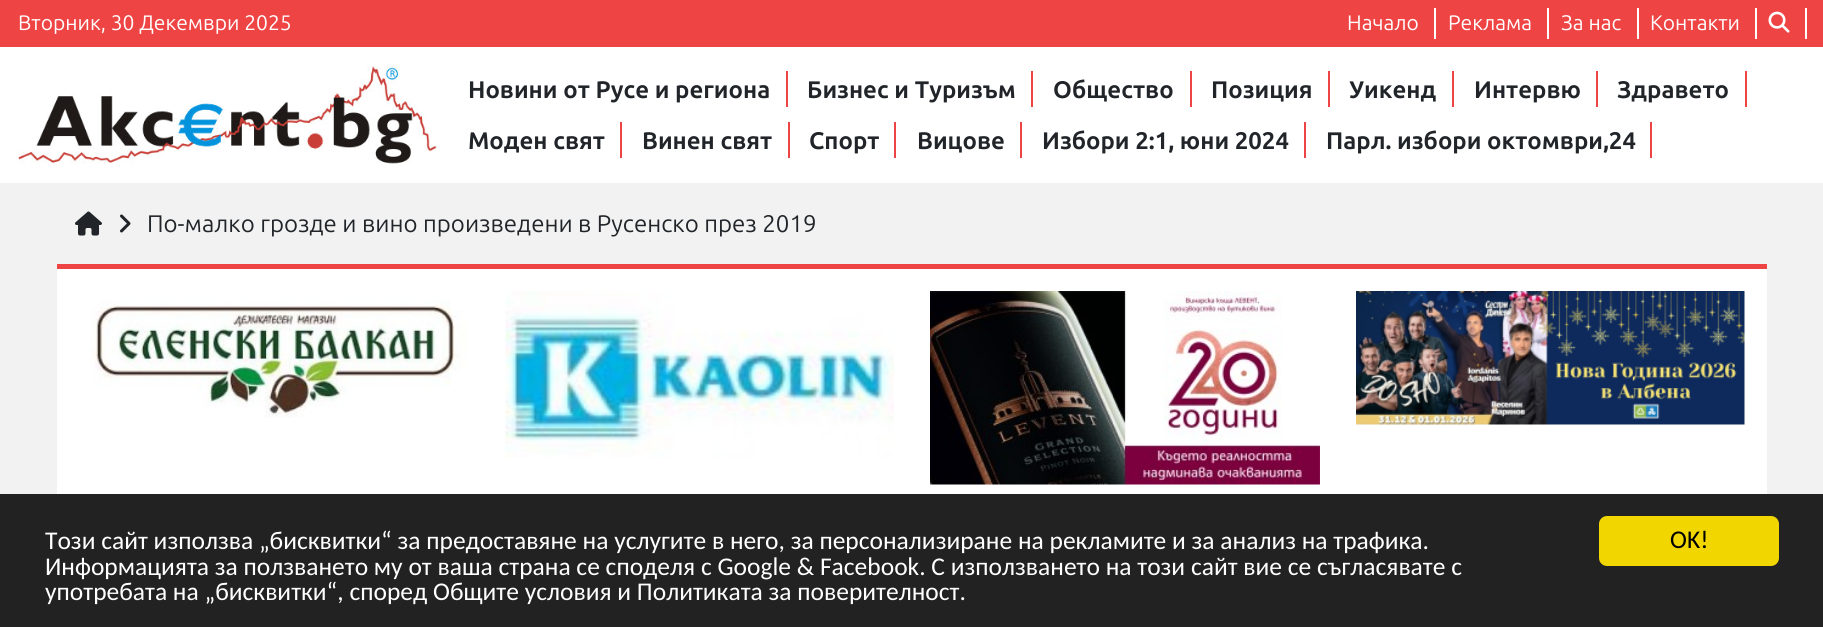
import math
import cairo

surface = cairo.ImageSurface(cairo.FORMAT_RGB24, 1823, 627)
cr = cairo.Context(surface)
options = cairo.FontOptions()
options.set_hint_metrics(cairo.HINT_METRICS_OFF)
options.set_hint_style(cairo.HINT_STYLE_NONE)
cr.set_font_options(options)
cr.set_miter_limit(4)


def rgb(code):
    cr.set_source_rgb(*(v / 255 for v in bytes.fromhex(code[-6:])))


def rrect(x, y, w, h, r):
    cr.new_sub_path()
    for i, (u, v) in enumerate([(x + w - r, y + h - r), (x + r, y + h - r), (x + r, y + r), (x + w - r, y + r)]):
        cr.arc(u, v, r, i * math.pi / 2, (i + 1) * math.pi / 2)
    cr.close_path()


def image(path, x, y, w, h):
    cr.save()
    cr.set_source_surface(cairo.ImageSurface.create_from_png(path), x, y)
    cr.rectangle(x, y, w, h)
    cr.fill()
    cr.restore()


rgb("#f2f2f2")
cr.paint()
for x, y, w, h, color in [
    (0, 47, 1823, 136, "#ffffff"),
    (0, 0, 1823, 47, "#ef4444"),
    (1434, 8, 2, 31, "#ffffff"),
    (1547, 8, 2, 31, "#ffffff"),
    (1637, 8, 2, 31, "#ffffff"),
    (1755, 8, 2, 31, "#ffffff"),
    (1805, 8, 2, 31, "#ffffff"),
]:
    rgb(color)
    cr.rectangle(x, y, w, h)
    cr.fill()
image("img/1.png", 1768, 11, 22, 22)
image("img/2.png", 18, 66, 419, 98)
for x, y, w, h, color in [
    (786, 71, 2, 36, "#ef4444"),
    (1031, 71, 2, 36, "#ef4444"),
    (1190, 71, 2, 36, "#ef4444"),
    (1328, 71, 2, 36, "#ef4444"),
    (1452, 71, 2, 36, "#ef4444"),
    (1596, 71, 2, 36, "#ef4444"),
    (1745, 71, 2, 36, "#ef4444"),
    (620, 122, 2, 36, "#ef4444"),
    (788, 122, 2, 36, "#ef4444"),
    (894, 122, 2, 36, "#ef4444"),
    (1020, 122, 2, 36, "#ef4444"),
    (1304, 122, 2, 36, "#ef4444"),
    (1650, 122, 2, 36, "#ef4444"),
]:
    rgb(color)
    cr.rectangle(x, y, w, h)
    cr.fill()
image("img/3.png", 75, 211, 27, 25)
image("img/4.png", 120, 214, 11, 19)
rgb("#ffffff")
cr.rectangle(57, 269, 1710, 225)
cr.fill()
rgb("#ef4444")
cr.rectangle(57, 264, 1710, 5)
cr.fill()
image("img/5.png", 91, 300, 376, 118)
image("img/6.png", 505, 291, 389, 167)
image("img/7.png", 930, 291, 390, 194)
image("img/8.png", 1356, 291, 389, 134)
rgb("#222222")
cr.rectangle(0, 494, 1823, 133)
cr.fill()
rgb("#f1d600")
rrect(1599, 516, 180, 50, 8)
cr.fill()
cr.select_font_face("Ubuntu")
cr.set_font_size(21)
rgb("#ffffff")
for x, y, s in [
    (18, 30, "Вторник, 30 Декември 2025"),
    (1347, 30, "Начало"),
    (1448, 30, "Реклама"),
    (1561, 30, "За нас"),
    (1650, 30, "Контакти"),
]:
    cr.move_to(x, y)
    cr.show_text(s)
cr.select_font_face("Ubuntu", cairo.FONT_SLANT_NORMAL, cairo.FONT_WEIGHT_BOLD)
cr.set_font_size(24)
rgb("#212529")
for x, y, s in [
    (468, 98, "Новини от Русе и региона"),
    (807, 98, "Бизнес и Туризъм"),
    (1053, 98, "Общество"),
    (1211, 98, "Позиция"),
    (1349, 98, "Уикенд"),
    (1474, 98, "Интервю"),
    (1617, 98, "Здравето"),
    (468, 149, "Моден свят"),
    (642, 149, "Винен свят"),
    (809, 149, "Спорт"),
    (917, 149, "Вицове"),
    (1042, 149, "Избори 2:1, юни 2024"),
    (1326, 149, "Парл. избори октомври,24"),
]:
    cr.move_to(x, y)
    cr.show_text(s)
cr.select_font_face("Ubuntu")
cr.move_to(147, 232)
cr.show_text("По-малко грозде и вино произведени в Русенско през 2019")
cr.select_font_face("Carlito")
cr.set_font_size(25.5)
rgb("#ffffff")
for x, y, s in [
    (45, 549, "Този сайт използва „бисквитки“ за предоставяне на услугите в него, за персонализиране на рекламите и за анализ на трафика."),
    (45, 575, "Информацията за ползването му от ваша страна се споделя с Google & Facebook. С използването на този сайт вие се съгласявате с"),
    (45, 600, "употребата на „бисквитки“, според Общите условия и Политиката за поверителност."),
]:
    cr.move_to(x, y)
    cr.show_text(s)
rgb("#000000")
cr.move_to(1670, 548)
cr.show_text("OK!")
surface.write_to_png("page.png")
